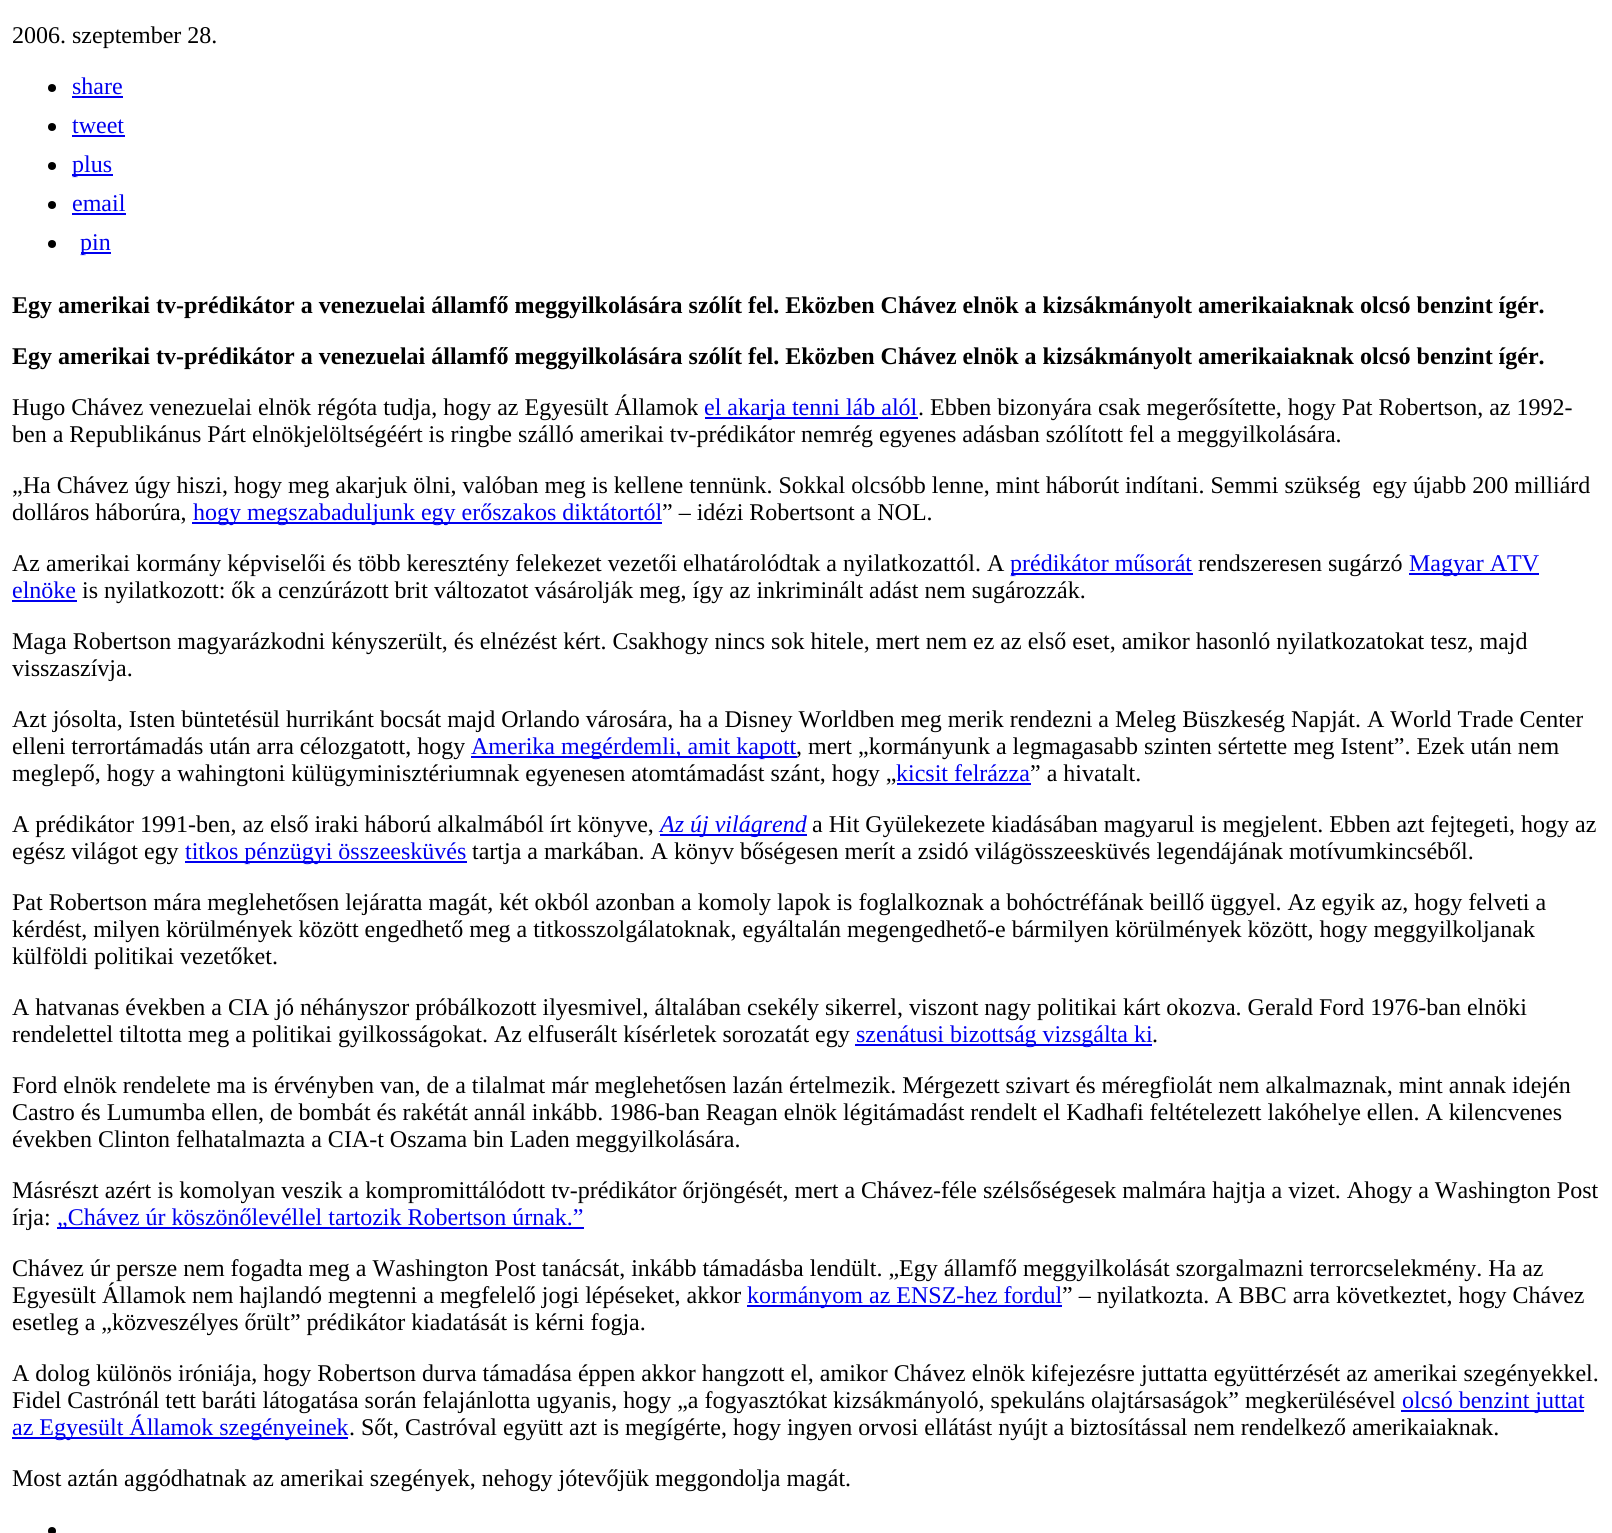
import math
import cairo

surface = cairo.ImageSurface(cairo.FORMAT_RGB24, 1612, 1533)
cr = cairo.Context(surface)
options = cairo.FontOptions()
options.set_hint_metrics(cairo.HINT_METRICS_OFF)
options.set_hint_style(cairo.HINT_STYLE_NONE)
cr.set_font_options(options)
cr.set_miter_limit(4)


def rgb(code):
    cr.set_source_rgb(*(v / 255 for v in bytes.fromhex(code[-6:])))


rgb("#ffffff")
cr.paint()
rgb("#000000")
cr.arc(52, 88, 4, 0, 2 * math.pi)
cr.fill()
rgb("#0000ee")
cr.rectangle(72, 96, 51, 2)
cr.fill()
rgb("#000000")
cr.arc(52, 127, 4, 0, 2 * math.pi)
cr.fill()
rgb("#0000ee")
cr.rectangle(72, 135, 53, 2)
cr.fill()
rgb("#000000")
cr.arc(52, 166, 4, 0, 2 * math.pi)
cr.fill()
rgb("#0000ee")
cr.rectangle(72, 174, 41, 2)
cr.fill()
rgb("#000000")
cr.arc(52, 205, 4, 0, 2 * math.pi)
cr.fill()
rgb("#0000ee")
cr.rectangle(72, 213, 54, 2)
cr.fill()
rgb("#000000")
cr.arc(52, 244, 4, 0, 2 * math.pi)
cr.fill()
for x, y, w, h, color in [
    (81, 252, 30, 2, "#0000ee"),
    (705, 417, 213, 2, "#0000ee"),
    (192, 522, 470, 2, "#0000ee"),
    (1011, 573, 182, 2, "#0000ee"),
    (1409, 573, 130, 2, "#0000ee"),
    (12, 600, 65, 2, "#0000ee"),
    (471, 756, 326, 2, "#0000ee"),
    (897, 783, 134, 2, "#0000ee"),
    (660, 834, 147, 2, "#0000ee"),
    (185, 861, 282, 2, "#0000ee"),
    (855, 1044, 297, 2, "#0000ee"),
    (57, 1227, 527, 2, "#0000ee"),
    (747, 1305, 315, 2, "#0000ee"),
    (1401, 1410, 183, 2, "#0000ee"),
    (12, 1437, 336, 2, "#0000ee"),
]:
    rgb(color)
    cr.rectangle(x, y, w, h)
    cr.fill()
rgb("#000000")
cr.arc(52, 1531, 4, 0, 2 * math.pi)
cr.fill()
cr.select_font_face("Liberation Serif")
cr.set_font_size(24)
cr.move_to(12, 43)
cr.show_text("2006. szeptember 28.")
rgb("#0000ee")
for x, y, s in [
    (72, 94, "share"),
    (72, 133, "tweet"),
    (72, 172, "plus"),
    (72, 211, "email"),
    (80, 250, "pin"),
]:
    cr.move_to(x, y)
    cr.show_text(s)
cr.select_font_face("Liberation Serif", cairo.FONT_SLANT_NORMAL, cairo.FONT_WEIGHT_BOLD)
rgb("#000000")
cr.move_to(12, 313)
cr.show_text("Egy amerikai tv-prédikátor a venezuelai államfő meggyilkolására szólít fel. Eközben Chávez elnök a kizsákmányolt amerikaiaknak olcsó benzint ígér.")
cr.move_to(12, 364)
cr.show_text("Egy amerikai tv-prédikátor a venezuelai államfő meggyilkolására szólít fel. Eközben Chávez elnök a kizsákmányolt amerikaiaknak olcsó benzint ígér.")
cr.select_font_face("Liberation Serif")
cr.move_to(12, 415)
cr.show_text("Hugo Chávez venezuelai elnök régóta tudja, hogy az Egyesült Államok")
rgb("#0000ee")
cr.move_to(704, 415)
cr.show_text("el akarja tenni láb alól")
rgb("#000000")
for x, y, s in [
    (918, 415, ". Ebben bizonyára csak megerősítette, hogy Pat Robertson, az 1992-"),
    (12, 442, "ben a Republikánus Párt elnökjelöltségéért is ringbe szálló amerikai tv-prédikátor nemrég egyenes adásban szólított fel a meggyilkolására."),
    (12, 493, "„Ha Chávez úgy hiszi, hogy meg akarjuk ölni, valóban meg is kellene tennünk. Sokkal olcsóbb lenne, mint háborút indítani. Semmi szükség  egy újabb 200 milliárd"),
    (12, 520, "dolláros háborúra,"),
]:
    cr.move_to(x, y)
    cr.show_text(s)
rgb("#0000ee")
cr.move_to(193, 520)
cr.show_text("hogy megszabaduljunk egy erőszakos diktátortól")
rgb("#000000")
cr.move_to(662, 520)
cr.show_text("” – idézi Robertsont a NOL.")
cr.move_to(12, 571)
cr.show_text("Az amerikai kormány képviselői és több keresztény felekezet vezetői elhatárolódtak a nyilatkozattól. A")
rgb("#0000ee")
cr.move_to(1010, 571)
cr.show_text("prédikátor műsorát")
rgb("#000000")
cr.move_to(1198, 571)
cr.show_text("rendszeresen sugárzó")
rgb("#0000ee")
cr.move_to(1409, 571)
cr.show_text("Magyar ATV")
cr.move_to(12, 598)
cr.show_text("elnöke")
rgb("#000000")
for x, y, s in [
    (82, 598, "is nyilatkozott: ők a cenzúrázott brit változatot vásárolják meg, így az inkriminált adást nem sugározzák."),
    (12, 649, "Maga Robertson magyarázkodni kényszerült, és elnézést kért. Csakhogy nincs sok hitele, mert nem ez az első eset, amikor hasonló nyilatkozatokat tesz, majd"),
    (12, 676, "visszaszívja."),
    (12, 727, "Azt jósolta, Isten büntetésül hurrikánt bocsát majd Orlando városára, ha a Disney Worldben meg merik rendezni a Meleg Büszkeség Napját. A World Trade Center"),
    (12, 754, "elleni terrortámadás után arra célozgatott, hogy"),
]:
    cr.move_to(x, y)
    cr.show_text(s)
rgb("#0000ee")
cr.move_to(471, 754)
cr.show_text("Amerika megérdemli, amit kapott")
rgb("#000000")
cr.move_to(796, 754)
cr.show_text(", mert „kormányunk a legmagasabb szinten sértette meg Istent”. Ezek után nem")
cr.move_to(12, 781)
cr.show_text("meglepő, hogy a wahingtoni külügyminisztériumnak egyenesen atomtámadást szánt, hogy „")
rgb("#0000ee")
cr.move_to(896, 781)
cr.show_text("kicsit felrázza")
rgb("#000000")
cr.move_to(1030, 781)
cr.show_text("” a hivatalt.")
cr.move_to(12, 832)
cr.show_text("A prédikátor 1991-ben, az első iraki háború alkalmából írt könyve,")
cr.select_font_face("Liberation Serif", cairo.FONT_SLANT_ITALIC)
rgb("#0000ee")
cr.move_to(660, 832)
cr.show_text("Az új világrend")
cr.select_font_face("Liberation Serif")
rgb("#000000")
cr.move_to(812, 832)
cr.show_text("a Hit Gyülekezete kiadásában magyarul is megjelent. Ebben azt fejtegeti, hogy az")
cr.move_to(12, 859)
cr.show_text("egész világot egy")
rgb("#0000ee")
cr.move_to(185, 859)
cr.show_text("titkos pénzügyi összeesküvés")
rgb("#000000")
for x, y, s in [
    (472, 859, "tartja a markában. A könyv bőségesen merít a zsidó világösszeesküvés legendájának motívumkincséből."),
    (12, 910, "Pat Robertson mára meglehetősen lejáratta magát, két okból azonban a komoly lapok is foglalkoznak a bohóctréfának beillő üggyel. Az egyik az, hogy felveti a"),
    (12, 937, "kérdést, milyen körülmények között engedhető meg a titkosszolgálatoknak, egyáltalán megengedhető-e bármilyen körülmények között, hogy meggyilkoljanak"),
    (12, 964, "külföldi politikai vezetőket."),
    (12, 1015, "A hatvanas években a CIA jó néhányszor próbálkozott ilyesmivel, általában csekély sikerrel, viszont nagy politikai kárt okozva. Gerald Ford 1976-ban elnöki"),
    (12, 1042, "rendelettel tiltotta meg a politikai gyilkosságokat. Az elfuserált kísérletek sorozatát egy"),
]:
    cr.move_to(x, y)
    cr.show_text(s)
rgb("#0000ee")
cr.move_to(856, 1042)
cr.show_text("szenátusi bizottság vizsgálta ki")
rgb("#000000")
for x, y, s in [
    (1152, 1042, "."),
    (12, 1093, "Ford elnök rendelete ma is érvényben van, de a tilalmat már meglehetősen lazán értelmezik. Mérgezett szivart és méregfiolát nem alkalmaznak, mint annak idején"),
    (12, 1120, "Castro és Lumumba ellen, de bombát és rakétát annál inkább. 1986-ban Reagan elnök légitámadást rendelt el Kadhafi feltételezett lakóhelye ellen. A kilencvenes"),
    (12, 1147, "években Clinton felhatalmazta a CIA-t Oszama bin Laden meggyilkolására."),
    (12, 1198, "Másrészt azért is komolyan veszik a kompromittálódott tv-prédikátor őrjöngését, mert a Chávez-féle szélsőségesek malmára hajtja a vizet. Ahogy a Washington Post"),
    (12, 1225, "írja:"),
]:
    cr.move_to(x, y)
    cr.show_text(s)
rgb("#0000ee")
cr.move_to(57, 1225)
cr.show_text("„Chávez úr köszönőlevéllel tartozik Robertson úrnak.”")
rgb("#000000")
cr.move_to(12, 1276)
cr.show_text("Chávez úr persze nem fogadta meg a Washington Post tanácsát, inkább támadásba lendült. „Egy államfő meggyilkolását szorgalmazni terrorcselekmény. Ha az")
cr.move_to(12, 1303)
cr.show_text("Egyesült Államok nem hajlandó megtenni a megfelelő jogi lépéseket, akkor")
rgb("#0000ee")
cr.move_to(747, 1303)
cr.show_text("kormányom az ENSZ-hez fordul")
rgb("#000000")
for x, y, s in [
    (1062, 1303, "” – nyilatkozta. A BBC arra következtet, hogy Chávez"),
    (12, 1330, "esetleg a „közveszélyes őrült” prédikátor kiadatását is kérni fogja."),
    (12, 1381, "A dolog különös iróniája, hogy Robertson durva támadása éppen akkor hangzott el, amikor Chávez elnök kifejezésre juttatta együttérzését az amerikai szegényekkel."),
    (12, 1408, "Fidel Castrónál tett baráti látogatása során felajánlotta ugyanis, hogy „a fogyasztókat kizsákmányoló, spekuláns olajtársaságok” megkerülésével"),
]:
    cr.move_to(x, y)
    cr.show_text(s)
rgb("#0000ee")
cr.move_to(1402, 1408)
cr.show_text("olcsó benzint juttat")
cr.move_to(12, 1435)
cr.show_text("az Egyesült Államok szegényeinek")
rgb("#000000")
cr.move_to(349, 1435)
cr.show_text(". Sőt, Castróval együtt azt is megígérte, hogy ingyen orvosi ellátást nyújt a biztosítással nem rendelkező amerikaiaknak.")
cr.move_to(12, 1486)
cr.show_text("Most aztán aggódhatnak az amerikai szegények, nehogy jótevőjük meggondolja magát.")
surface.write_to_png("page.png")
